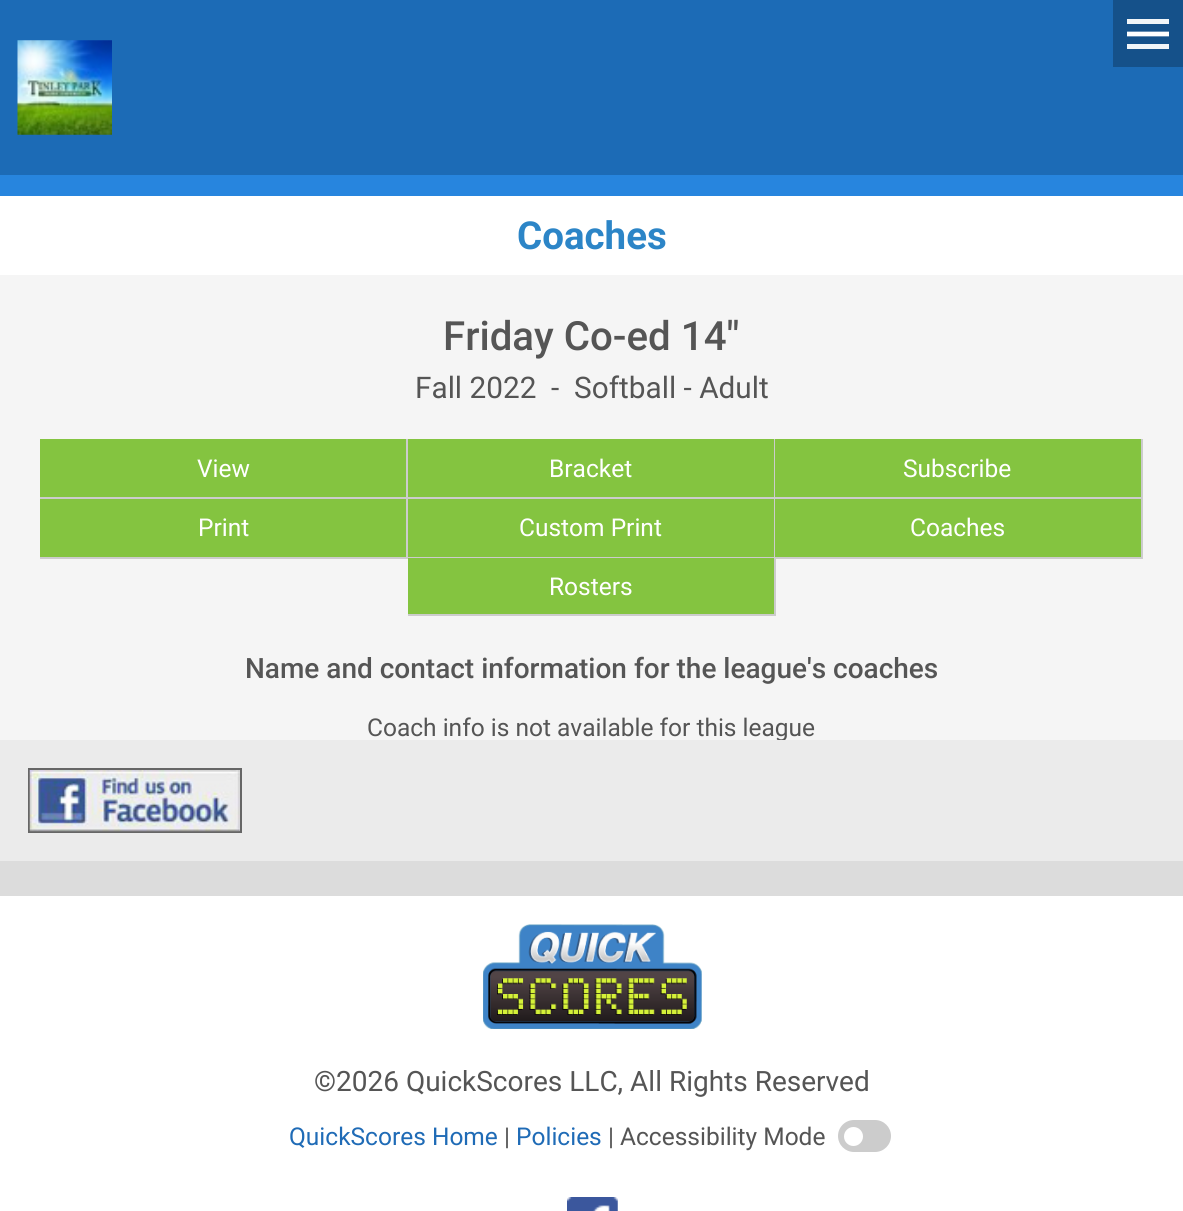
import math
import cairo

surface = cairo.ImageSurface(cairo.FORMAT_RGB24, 1183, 1211)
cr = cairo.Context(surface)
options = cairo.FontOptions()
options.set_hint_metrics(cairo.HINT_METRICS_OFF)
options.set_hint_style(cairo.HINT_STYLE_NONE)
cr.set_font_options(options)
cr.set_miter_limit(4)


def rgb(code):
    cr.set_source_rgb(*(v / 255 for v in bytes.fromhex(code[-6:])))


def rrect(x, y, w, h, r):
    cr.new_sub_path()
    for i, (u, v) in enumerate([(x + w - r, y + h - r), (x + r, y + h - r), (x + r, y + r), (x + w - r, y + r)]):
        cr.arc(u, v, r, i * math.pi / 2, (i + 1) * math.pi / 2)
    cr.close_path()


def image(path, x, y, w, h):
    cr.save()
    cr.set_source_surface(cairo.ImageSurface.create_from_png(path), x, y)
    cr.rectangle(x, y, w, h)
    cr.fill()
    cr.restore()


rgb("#f5f5f5")
cr.paint()
rgb("#1c6bb6")
cr.rectangle(0, 0, 1183, 175)
cr.fill()
rgb("#2785de")
cr.rectangle(0, 175, 1183, 21)
cr.fill()
image("img/1.png", 17, 40, 95, 95)
rgb("#15518a")
cr.rectangle(1113, 0, 70, 67)
cr.fill()
rgb("#f1f5f8")
cr.rectangle(1127, 19, 42, 5)
cr.fill()
cr.new_path()
cr.move_to(1127, 34)
cr.line_to(1169, 34)
rgb("#ffffff")
cr.set_line_width(4.7)
cr.stroke()
for x, y, w, h, color in [
    (1127, 44, 42, 5, "#f1f5f8"),
    (0, 196, 1183, 79, "#ffffff"),
    (40, 439, 366, 58, "#84c440"),
    (406, 439, 2, 119, "#cccccc"),
    (40, 497, 368, 2, "#cccccc"),
    (408, 439, 366, 58, "#84c440"),
    (774, 439, 1, 119, "#cccccc"),
    (408, 497, 367, 2, "#cccccc"),
    (775, 439, 366, 58, "#84c440"),
    (1141, 439, 2, 119, "#cccccc"),
    (775, 497, 368, 2, "#cccccc"),
    (40, 499, 366, 58, "#84c440"),
    (40, 557, 368, 2, "#cccccc"),
    (408, 499, 366, 58, "#84c440"),
    (408, 557, 367, 1, "#cccccc"),
    (775, 499, 366, 58, "#84c440"),
    (775, 557, 368, 2, "#cccccc"),
    (408, 558, 366, 56, "#84c440"),
    (774, 558, 2, 58, "#cccccc"),
    (408, 614, 367, 2, "#cccccc"),
    (0, 896, 1183, 315, "#ffffff"),
    (0, 861, 1183, 35, "#dcdcdc"),
]:
    rgb(color)
    cr.rectangle(x, y, w, h)
    cr.fill()
image("img/3.png", 483, 924, 219, 105)
rgb("#cccccc")
rrect(838, 1120, 53, 32, 16)
cr.fill()
rgb("#ffffff")
cr.arc(853.5, 1136.5, 9.5, 0, 2 * math.pi)
cr.fill()
image("img/4.png", 567, 1197, 51, 14)
cr.select_font_face("Roboto", cairo.FONT_SLANT_NORMAL, cairo.FONT_WEIGHT_BOLD)
cr.set_font_size(38.5)
rgb("#2c85c7")
cr.move_to(517, 249)
cr.show_text("Coaches")
cr.select_font_face("Roboto Medium")
cr.set_font_size(40.25)
rgb("#555555")
cr.move_to(443, 350)
cr.show_text("Friday Co-ed 14\"")
cr.select_font_face("Roboto")
cr.set_font_size(29.75)
cr.move_to(415, 398)
cr.show_text("Fall 2022  -  Softball - Adult")
cr.set_font_size(24.5)
rgb("#ffffff")
for x, y, s in [
    (197, 477, "View"),
    (549, 477, "Bracket"),
    (903, 477, "Subscribe"),
    (198, 536, "Print"),
    (519, 536, "Custom Print"),
    (910, 536, "Coaches"),
    (549, 595, "Rosters"),
]:
    cr.move_to(x, y)
    cr.show_text(s)
cr.select_font_face("Roboto Medium")
cr.set_font_size(28)
rgb("#555555")
cr.move_to(245, 678)
cr.show_text("Name and contact information for the league's coaches")
cr.select_font_face("Roboto")
cr.set_font_size(24.5)
cr.move_to(367, 736)
cr.show_text("Coach info is not available for this league")
rgb("#ebebeb")
cr.rectangle(0, 740, 1183, 121)
cr.fill()
cr.rectangle(29, 769, 212, 63)
rgb("#666666")
cr.set_line_width(2)
cr.stroke()
image("img/2.png", 29, 770, 211, 62)
cr.set_font_size(28)
rgb("#555555")
cr.move_to(314, 1091)
cr.show_text("©2026 QuickScores LLC, All Rights Reserved")
cr.set_font_size(24.5)
rgb("#1f6bb6")
cr.move_to(289, 1145)
cr.show_text("QuickScores Home")
rgb("#555555")
cr.move_to(504, 1145)
cr.show_text("|")
rgb("#1f6bb6")
cr.move_to(516, 1145)
cr.show_text("Policies")
rgb("#555555")
cr.move_to(608, 1145)
cr.show_text("| Accessibility Mode")
surface.write_to_png("page.png")
